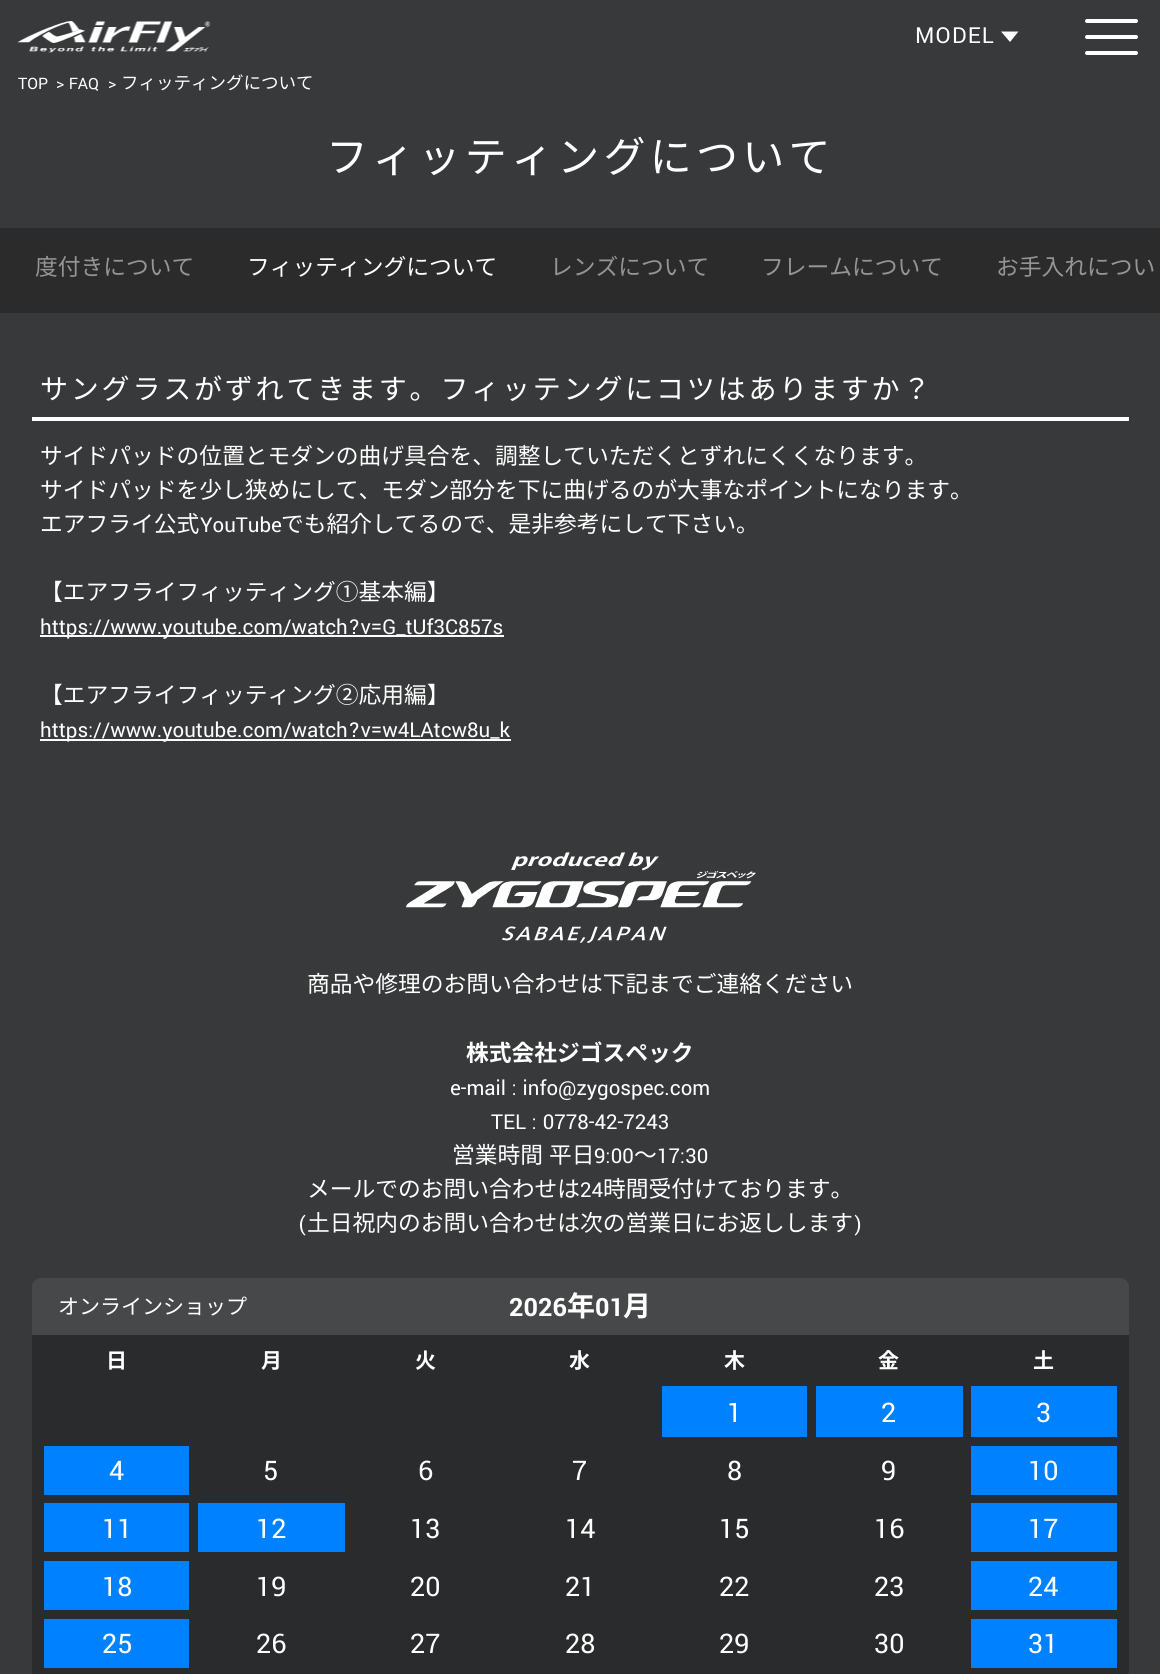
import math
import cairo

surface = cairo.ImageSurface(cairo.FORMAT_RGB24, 1160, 1674)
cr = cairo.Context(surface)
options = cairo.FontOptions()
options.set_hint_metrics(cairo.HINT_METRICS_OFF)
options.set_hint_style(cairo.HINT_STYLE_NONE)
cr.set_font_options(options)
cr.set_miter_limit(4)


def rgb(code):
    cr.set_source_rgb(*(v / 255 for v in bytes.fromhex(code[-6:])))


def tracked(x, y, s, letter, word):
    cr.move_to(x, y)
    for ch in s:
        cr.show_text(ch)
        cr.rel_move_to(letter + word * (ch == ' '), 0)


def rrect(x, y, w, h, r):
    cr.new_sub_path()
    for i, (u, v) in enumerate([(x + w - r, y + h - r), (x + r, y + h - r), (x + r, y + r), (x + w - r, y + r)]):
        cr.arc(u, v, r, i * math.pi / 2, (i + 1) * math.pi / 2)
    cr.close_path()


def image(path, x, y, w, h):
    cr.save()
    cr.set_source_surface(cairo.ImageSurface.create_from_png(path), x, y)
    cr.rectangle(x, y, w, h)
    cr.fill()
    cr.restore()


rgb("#38393a")
cr.paint()
image("img/1.png", 17, 21, 194, 32)
rgb("#ffffff")
cr.new_path()
cr.move_to(1001, 31.5)
cr.line_to(1018.5, 31.5)
cr.line_to(1010, 42)
cr.close_path()
cr.fill()
rrect(1085, 19, 53, 4, 2)
cr.fill()
rrect(1085, 35, 53, 4, 2)
cr.fill()
rrect(1085, 51, 53, 4, 2)
cr.fill()
for x, y, w, h, color in [
    (0, 228, 1160, 85, "#2b2b2b"),
    (32, 417, 1097, 4, "#ffffff"),
    (40, 635, 464, 2, "#ffffff"),
    (40, 739, 471, 2, "#ffffff"),
]:
    rgb(color)
    cr.rectangle(x, y, w, h)
    cr.fill()
image("img/2.png", 406, 852, 350, 91)
rgb("#2a2b2c")
rrect(32, 1278, 1097, 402, 9)
cr.fill()
cr.set_source_rgba(1, 1, 1, 0.14)
cr.new_path()
cr.move_to(41, 1278)
cr.line_to(1120, 1278)
cr.curve_to(1125, 1278, 1129, 1282, 1129, 1287)
cr.line_to(1129, 1335)
cr.line_to(32, 1335)
cr.line_to(32, 1287)
cr.curve_to(32, 1282, 36, 1278, 41, 1278)
cr.close_path()
cr.fill()
for x, y, w, h, color in [
    (662, 1386, 145, 51, "#0081ff"),
    (816, 1386, 147, 51, "#0081ff"),
    (971, 1386, 146, 51, "#0081ff"),
    (44, 1446, 145, 49, "#0081ff"),
    (971, 1446, 146, 49, "#0081ff"),
    (44, 1503, 145, 49, "#0081ff"),
    (198, 1503, 147, 49, "#0081ff"),
    (971, 1503, 146, 49, "#0081ff"),
    (44, 1561, 145, 49, "#0081ff"),
    (971, 1561, 146, 49, "#0081ff"),
    (44, 1619, 145, 49, "#0081ff"),
    (971, 1619, 146, 49, "#0081ff"),
]:
    rgb(color)
    cr.rectangle(x, y, w, h)
    cr.fill()
cr.select_font_face("Yantramanav")
cr.set_font_size(24.5)
rgb("#ffffff")
tracked(915, 43, "MODEL", 1.25, 0)
cr.set_font_size(17.5)
for x, y, s in [
    (18, 89, "TOP"),
    (56, 89, "> FAQ"),
    (108, 89, ">"),
]:
    cr.move_to(x, y)
    cr.show_text(s)
cr.select_font_face("Noto Sans JP")
cr.move_to(121, 89)
cr.show_text("フィッティングについて")
cr.set_font_size(42)
tracked(326, 172, "フィッティングについて", 4.25, 0)
cr.set_font_size(22.75)
rgb("#959595")
cr.move_to(35, 275)
cr.show_text("度付きについて")
rgb("#ffffff")
cr.move_to(247, 275)
cr.show_text("フィッティングについて")
rgb("#959595")
for x, y, s in [
    (550, 275, "レンズについて"),
    (761, 275, "フレームについて"),
    (996, 275, "お手入れについ"),
]:
    cr.move_to(x, y)
    cr.show_text(s)
cr.set_font_size(28)
rgb("#ffffff")
tracked(40, 399, "サングラスがずれてきます。フィッテングにコツはありますか？", 2.8, 0)
cr.set_font_size(22.75)
for x, y, s in [
    (40, 464, "サイドパッドの位置とモダンの曲げ具合を、調整していただくとずれにくくなります。"),
    (40, 498, "サイドパッドを少し狭めにして、モダン部分を下に曲げるのが大事なポイントになります。"),
    (40, 532, "エアフライ公式"),
]:
    cr.move_to(x, y)
    cr.show_text(s)
cr.select_font_face("Yantramanav")
cr.move_to(200, 532)
cr.show_text("YouTube")
cr.select_font_face("Noto Sans JP")
cr.move_to(281, 532)
cr.show_text("でも紹介してるので、是非参考にして下さい。")
cr.move_to(40, 600)
cr.show_text("【エアフライフィッティング①基本編】")
cr.select_font_face("Yantramanav")
cr.move_to(40, 634)
cr.show_text("https://www.youtube.com/watch?v=G_tUf3C857s")
cr.select_font_face("Noto Sans JP")
cr.move_to(40, 703)
cr.show_text("【エアフライフィッティング②応用編】")
cr.select_font_face("Yantramanav")
cr.move_to(40, 737)
cr.show_text("https://www.youtube.com/watch?v=w4LAtcw8u_k")
cr.select_font_face("Noto Sans JP")
cr.move_to(307, 992)
cr.show_text("商品や修理のお問い合わせは下記までご連絡ください")
cr.select_font_face("Noto Sans JP", cairo.FONT_SLANT_NORMAL, cairo.FONT_WEIGHT_BOLD)
cr.move_to(466, 1061)
cr.show_text("株式会社ジゴスペック")
cr.select_font_face("Yantramanav")
cr.move_to(450, 1095)
cr.show_text("e-mail : info@zygospec.com")
cr.move_to(491, 1129)
cr.show_text("TEL : 0778-42-7243")
cr.select_font_face("Noto Sans JP")
cr.move_to(452, 1163)
cr.show_text("営業時間")
cr.move_to(549, 1163)
cr.show_text("平日")
cr.select_font_face("Yantramanav")
cr.move_to(594, 1163)
cr.show_text("9:00")
cr.select_font_face("Noto Sans JP")
cr.move_to(634, 1163)
cr.show_text("～")
cr.select_font_face("Yantramanav")
cr.move_to(657, 1163)
cr.show_text("17:30")
cr.select_font_face("Noto Sans JP")
cr.move_to(307, 1197)
cr.show_text("メールでのお問い合わせは")
cr.select_font_face("Yantramanav")
cr.move_to(580, 1197)
cr.show_text("24")
cr.select_font_face("Noto Sans JP")
cr.move_to(603, 1197)
cr.show_text("時間受付けております。")
cr.select_font_face("Yantramanav")
cr.move_to(298, 1231)
cr.show_text("(")
cr.select_font_face("Noto Sans JP")
cr.move_to(307, 1231)
cr.show_text("土日祝内のお問い合わせは次の営業日にお返しします")
cr.select_font_face("Yantramanav")
cr.move_to(853, 1231)
cr.show_text(")")
cr.select_font_face("Noto Sans JP")
cr.set_font_size(21)
cr.move_to(58, 1314)
cr.show_text("オンラインショップ")
cr.select_font_face("Yantramanav", cairo.FONT_SLANT_NORMAL, cairo.FONT_WEIGHT_BOLD)
cr.set_font_size(28)
cr.move_to(509, 1316)
cr.show_text("2026")
cr.select_font_face("Noto Sans JP", cairo.FONT_SLANT_NORMAL, cairo.FONT_WEIGHT_BOLD)
cr.move_to(567, 1316)
cr.show_text("年")
cr.select_font_face("Yantramanav", cairo.FONT_SLANT_NORMAL, cairo.FONT_WEIGHT_BOLD)
cr.move_to(595, 1316)
cr.show_text("01")
cr.select_font_face("Noto Sans JP", cairo.FONT_SLANT_NORMAL, cairo.FONT_WEIGHT_BOLD)
cr.move_to(623, 1316)
cr.show_text("月")
cr.set_font_size(21)
for x, y, s in [
    (106, 1368, "日"),
    (261, 1368, "月"),
    (415, 1368, "火"),
    (569, 1368, "水"),
    (724, 1368, "木"),
    (878, 1368, "金"),
    (1033, 1368, "土"),
]:
    cr.move_to(x, y)
    cr.show_text(s)
cr.select_font_face("Yantramanav")
cr.set_font_size(30)
for x, y, s in [
    (727, 1422, "1"),
    (881, 1422, "2"),
    (1036, 1422, "3"),
    (109, 1480, "4"),
    (263, 1480, "5"),
    (418, 1480, "6"),
    (572, 1480, "7"),
    (727, 1480, "8"),
    (881, 1480, "9"),
    (1028, 1480, "10"),
    (102, 1538, "11"),
    (256, 1538, "12"),
    (410, 1538, "13"),
    (565, 1538, "14"),
    (719, 1538, "15"),
    (874, 1538, "16"),
    (1028, 1538, "17"),
    (102, 1596, "18"),
    (256, 1596, "19"),
    (410, 1596, "20"),
    (565, 1596, "21"),
    (719, 1596, "22"),
    (874, 1596, "23"),
    (1028, 1596, "24"),
    (102, 1653, "25"),
    (256, 1653, "26"),
    (410, 1653, "27"),
    (565, 1653, "28"),
    (719, 1653, "29"),
    (874, 1653, "30"),
    (1028, 1653, "31"),
]:
    cr.move_to(x, y)
    cr.show_text(s)
surface.write_to_png("page.png")
